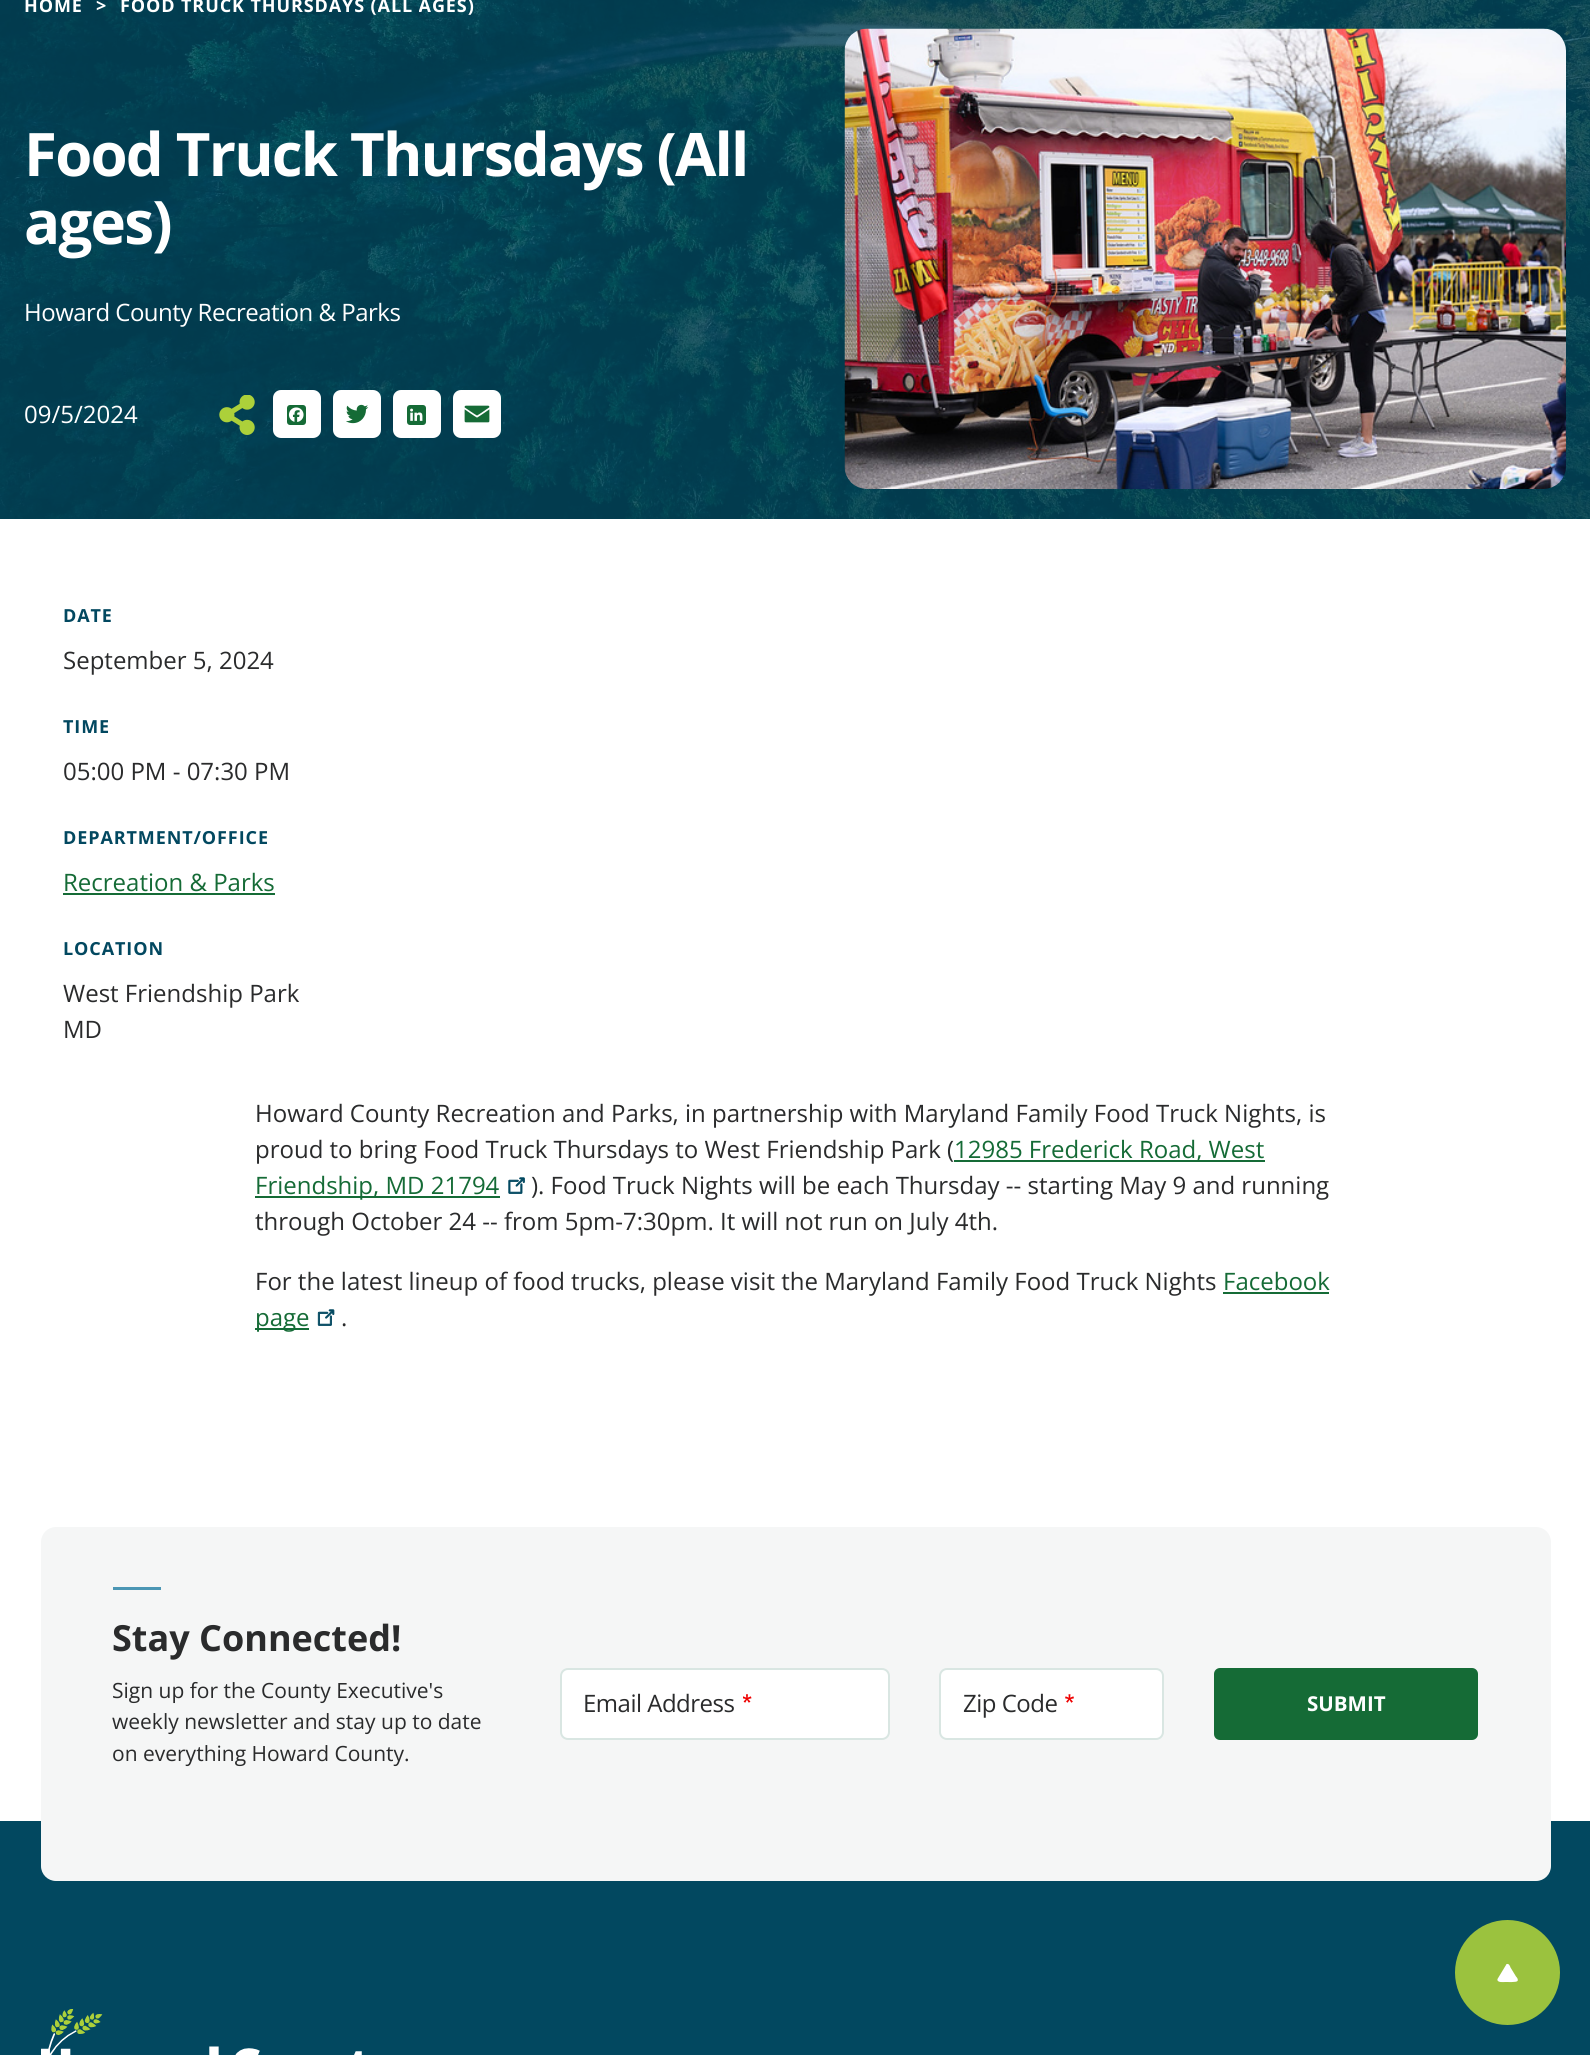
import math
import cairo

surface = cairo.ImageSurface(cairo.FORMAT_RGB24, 1590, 2055)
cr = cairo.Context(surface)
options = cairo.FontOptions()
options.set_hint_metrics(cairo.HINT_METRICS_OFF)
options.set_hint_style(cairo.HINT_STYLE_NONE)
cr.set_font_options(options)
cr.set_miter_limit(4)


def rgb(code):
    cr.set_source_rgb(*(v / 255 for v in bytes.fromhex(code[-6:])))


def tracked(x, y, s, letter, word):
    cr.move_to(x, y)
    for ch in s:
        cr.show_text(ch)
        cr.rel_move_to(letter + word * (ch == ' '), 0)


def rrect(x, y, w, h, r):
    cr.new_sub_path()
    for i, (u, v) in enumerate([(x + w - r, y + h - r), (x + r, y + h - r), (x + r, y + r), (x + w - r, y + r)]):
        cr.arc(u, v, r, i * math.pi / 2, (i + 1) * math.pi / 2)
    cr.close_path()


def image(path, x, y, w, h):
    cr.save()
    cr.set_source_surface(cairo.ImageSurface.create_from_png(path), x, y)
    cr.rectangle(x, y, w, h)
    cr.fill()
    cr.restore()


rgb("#ffffff")
cr.paint()
image("img/1.png", 0, 0, 1590, 519)
image("img/2.png", 219, 395, 36, 40)
rgb("#ffffff")
rrect(273, 390, 48, 48, 8)
cr.fill()
rgb("#156b36")
rrect(287, 405, 19, 20, 3)
cr.fill()
image("img/3.png", 288, 407, 16, 15)
rgb("#ffffff")
rrect(333, 390, 48, 48, 8)
cr.fill()
image("img/4.png", 346, 404, 23, 20)
rrect(393, 390, 48, 48, 8)
cr.fill()
rgb("#156b36")
rrect(407, 405, 19, 20, 3)
cr.fill()
image("img/5.png", 410, 408, 13, 13)
rgb("#ffffff")
rrect(453, 390, 48, 48, 8)
cr.fill()
image("img/6.png", 464, 405, 26, 18)
image("img/7.png", 844, 28, 722, 461)
for x, y, w, h, color in [
    (63, 893, 212, 2, "#156b36"),
    (954, 1160, 311, 2, "#156b36"),
    (255, 1196, 245, 2, "#156b36"),
]:
    rgb(color)
    cr.rectangle(x, y, w, h)
    cr.fill()
image("img/8.png", 508, 1177, 17, 17)
cr.rectangle(1223, 1292, 106, 2)
cr.fill()
cr.rectangle(255, 1328, 54, 2)
cr.fill()
image("img/9.png", 317, 1309, 18, 17)
rgb("#024860")
cr.rectangle(0, 1821, 1590, 234)
cr.fill()
rgb("#f5f6f6")
rrect(41, 1527, 1510, 354, 15)
cr.fill()
rgb("#4b96b4")
cr.rectangle(113, 1587, 48, 3)
cr.fill()
rgb("#ffffff")
rrect(561, 1669, 328, 70, 7)
cr.fill_preserve()
rgb("#d9e6e2")
cr.stroke()
image("img/10.png", 743, 1694, 9, 9)
rgb("#ffffff")
rrect(940, 1669, 223, 70, 7)
cr.fill_preserve()
rgb("#d9e6e2")
cr.stroke()
image("img/11.png", 1065, 1694, 9, 9)
rgb("#156b36")
rrect(1215, 1669, 262, 70, 5)
cr.fill_preserve()
cr.stroke()
image("img/12.png", 41, 2009, 321, 46)
rgb("#9bc23e")
cr.arc(1507.5, 1972.5, 52.5, 0, 2 * math.pi)
cr.fill()
rgb("#ffffff")
cr.new_path()
cr.move_to(1506, 1965)
cr.line_to(1497.5, 1979)
cr.curve_to(1496.5, 1983, 1504, 1982, 1505, 1982)
cr.curve_to(1507, 1982, 1516.5, 1982.5, 1517.5, 1981)
cr.curve_to(1518.5, 1979.5, 1517, 1977.5, 1516, 1976.5)
cr.line_to(1510.5, 1967.5)
cr.curve_to(1510, 1966, 1509, 1963.5, 1507, 1964)
cr.curve_to(1506.5, 1964, 1506, 1964.5, 1506, 1965)
cr.close_path()
cr.fill()
cr.select_font_face("Open Sans", cairo.FONT_SLANT_NORMAL, cairo.FONT_WEIGHT_BOLD)
cr.set_font_size(18)
for x, y, s in [
    (24, 12, "HOME"),
    (96, 12, ">"),
    (120, 12, "FOOD TRUCK THURSDAYS (ALL AGES)"),
]:
    tracked(x, y, s, 0.9, 0)
cr.set_font_size(60)
tracked(24, 176, "Food Truck Thursdays (All", -1.8, 0)
tracked(24, 244, "ages)", -1.8, 0)
cr.select_font_face("Open Sans")
cr.set_font_size(24)
tracked(24, 321, "Howard County Recreation & Parks", -0.5, 0)
cr.move_to(24, 423)
cr.show_text("09/5/2024")
cr.select_font_face("Open Sans", cairo.FONT_SLANT_NORMAL, cairo.FONT_WEIGHT_BOLD)
cr.set_font_size(18)
rgb("#024860")
tracked(63, 622, "DATE", 0.9, 0)
cr.select_font_face("Open Sans")
cr.set_font_size(24)
rgb("#2a2b2c")
cr.move_to(63, 669)
cr.show_text("September 5, 2024")
cr.select_font_face("Open Sans", cairo.FONT_SLANT_NORMAL, cairo.FONT_WEIGHT_BOLD)
cr.set_font_size(18)
rgb("#024860")
tracked(63, 733, "TIME", 0.9, 0)
cr.select_font_face("Open Sans")
cr.set_font_size(24)
rgb("#2a2b2c")
cr.move_to(63, 780)
cr.show_text("05:00 PM - 07:30 PM")
cr.select_font_face("Open Sans", cairo.FONT_SLANT_NORMAL, cairo.FONT_WEIGHT_BOLD)
cr.set_font_size(18)
rgb("#024860")
tracked(63, 844, "DEPARTMENT/OFFICE", 0.9, 0)
cr.select_font_face("Open Sans")
cr.set_font_size(24)
rgb("#156b36")
cr.move_to(63, 891)
cr.show_text("Recreation & Parks")
cr.select_font_face("Open Sans", cairo.FONT_SLANT_NORMAL, cairo.FONT_WEIGHT_BOLD)
cr.set_font_size(18)
rgb("#024860")
tracked(63, 955, "LOCATION", 0.9, 0)
cr.select_font_face("Open Sans")
cr.set_font_size(24)
rgb("#2a2b2c")
for x, y, s in [
    (63, 1002, "West Friendship Park"),
    (63, 1038, "MD"),
    (255, 1122, "Howard County Recreation and Parks, in partnership with Maryland Family Food Truck Nights, is"),
    (255, 1158, "proud to bring Food Truck Thursdays to West Friendship Park ("),
]:
    cr.move_to(x, y)
    cr.show_text(s)
rgb("#156b36")
cr.move_to(954, 1158)
cr.show_text("12985 Frederick Road, West")
cr.move_to(255, 1194)
cr.show_text("Friendship, MD 21794")
rgb("#2a2b2c")
for x, y, s in [
    (531, 1194, "). Food Truck Nights will be each Thursday -- starting May 9 and running"),
    (255, 1230, "through October 24 -- from 5pm-7:30pm. It will not run on July 4th."),
    (255, 1290, "For the latest lineup of food trucks, please visit the Maryland Family Food Truck Nights"),
]:
    cr.move_to(x, y)
    cr.show_text(s)
rgb("#156b36")
cr.move_to(1223, 1290)
cr.show_text("Facebook")
cr.move_to(255, 1326)
cr.show_text("page")
rgb("#2a2b2c")
cr.move_to(341, 1326)
cr.show_text(".")
cr.select_font_face("Open Sans", cairo.FONT_SLANT_NORMAL, cairo.FONT_WEIGHT_BOLD)
cr.set_font_size(36)
cr.move_to(112, 1651)
cr.show_text("Stay Connected!")
cr.select_font_face("Open Sans")
cr.set_font_size(21)
for x, y, s in [
    (112, 1698, "Sign up for the County Executive's"),
    (112, 1729, "weekly newsletter and stay up to date"),
    (112, 1761, "on everything Howard County."),
]:
    cr.move_to(x, y)
    cr.show_text(s)
cr.set_font_size(24)
tracked(583, 1712, "Email Address", -0.5, 0)
tracked(963, 1712, "Zip Code", -0.5, 0)
cr.select_font_face("Open Sans", cairo.FONT_SLANT_NORMAL, cairo.FONT_WEIGHT_BOLD)
cr.set_font_size(20.5)
rgb("#ffffff")
cr.move_to(1307, 1711)
cr.show_text("SUBMIT")
surface.write_to_png("page.png")
